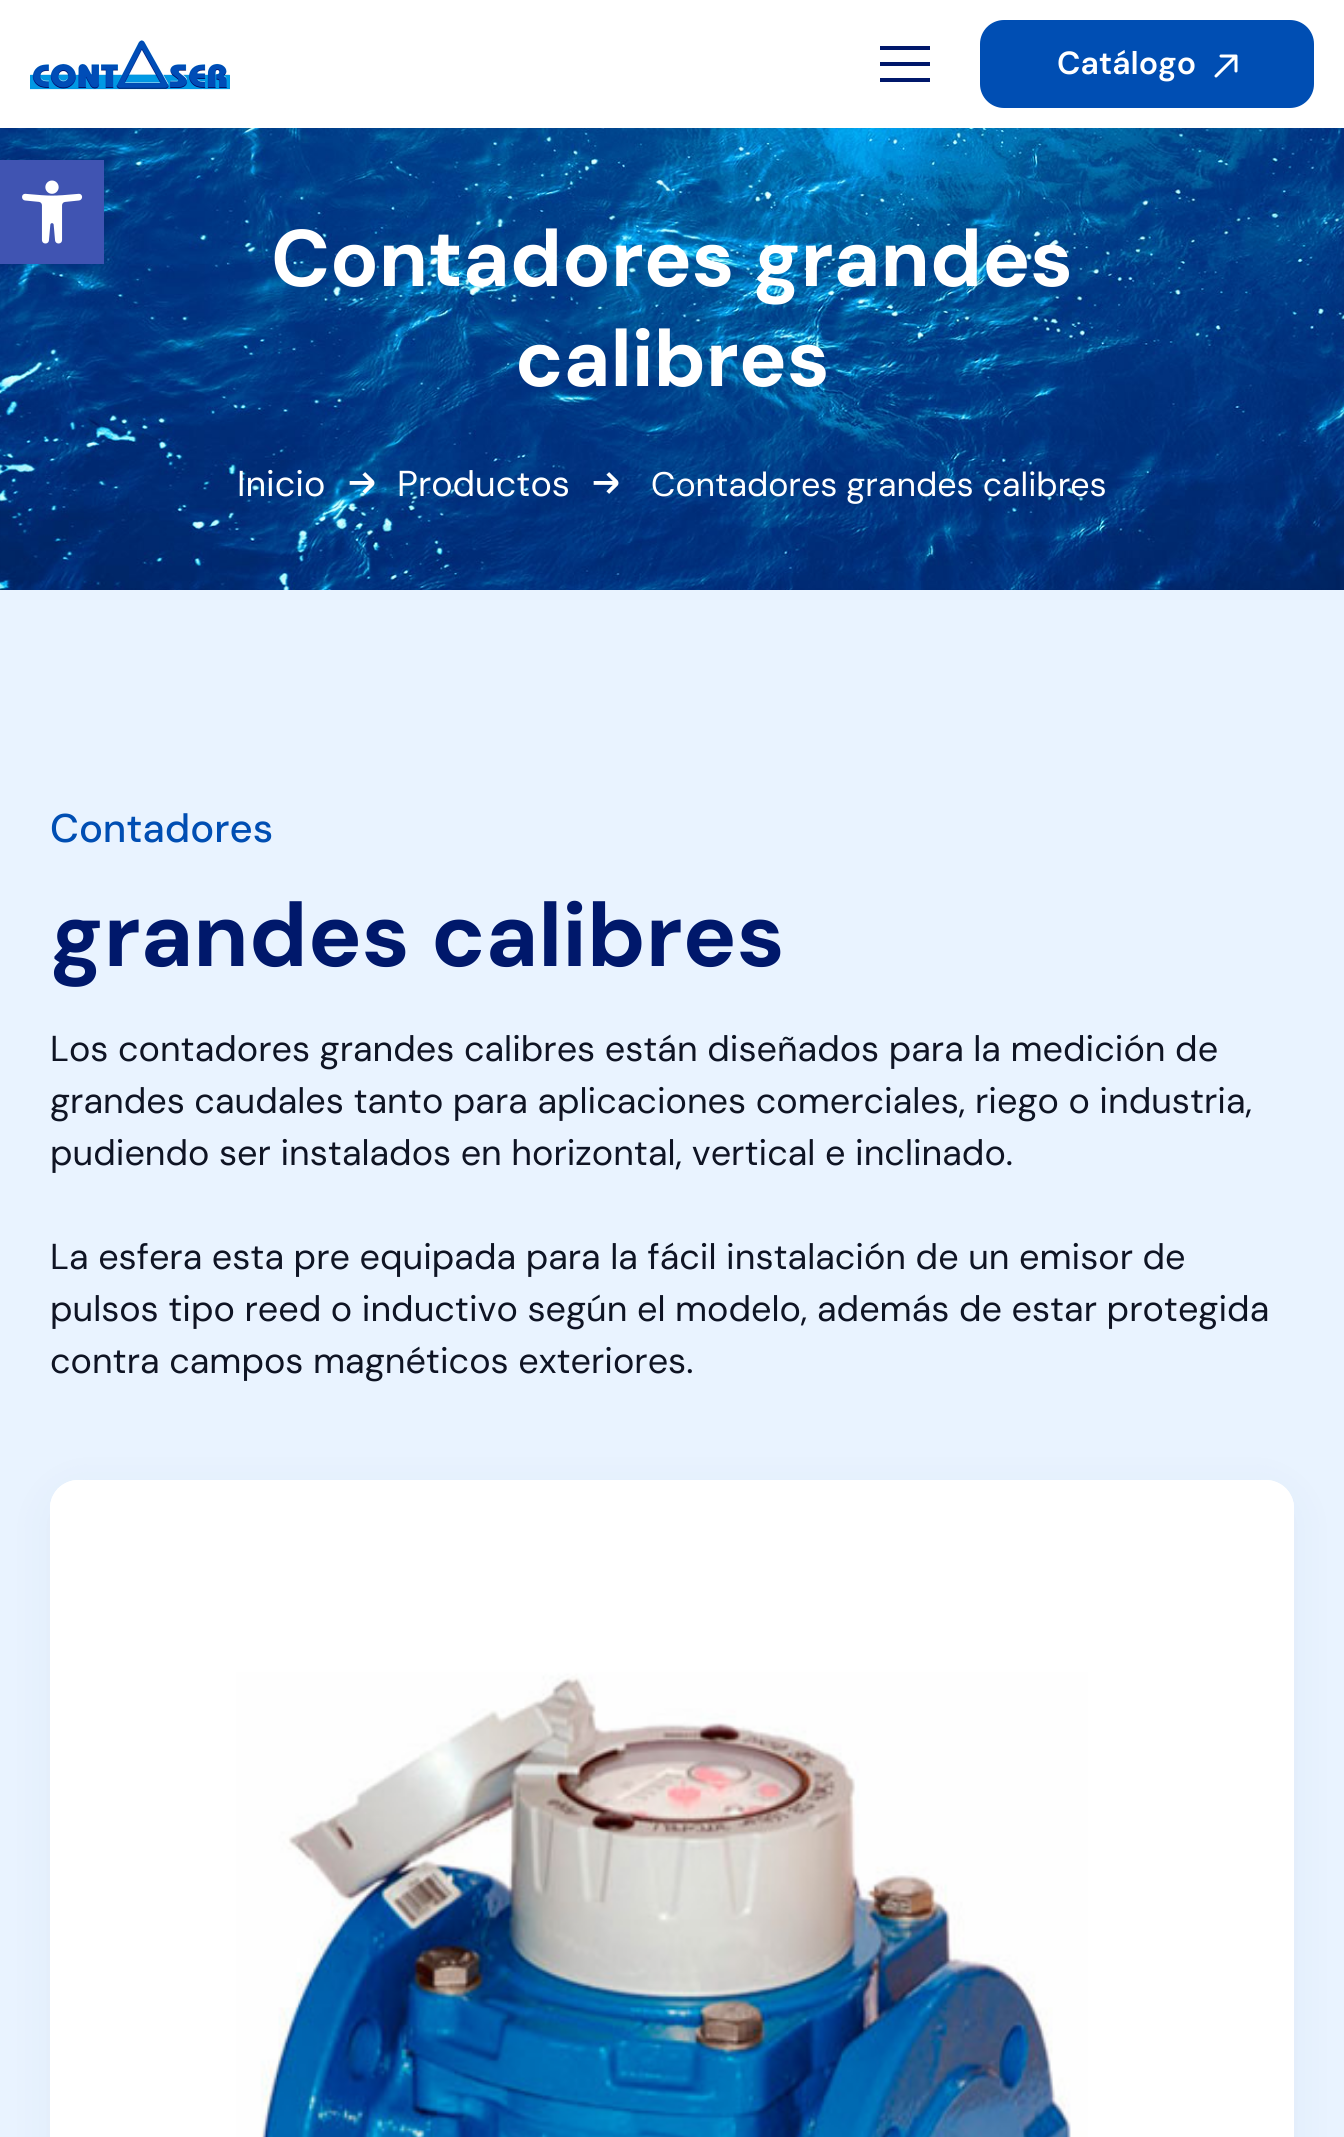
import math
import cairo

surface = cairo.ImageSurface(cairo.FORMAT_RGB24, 1344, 2137)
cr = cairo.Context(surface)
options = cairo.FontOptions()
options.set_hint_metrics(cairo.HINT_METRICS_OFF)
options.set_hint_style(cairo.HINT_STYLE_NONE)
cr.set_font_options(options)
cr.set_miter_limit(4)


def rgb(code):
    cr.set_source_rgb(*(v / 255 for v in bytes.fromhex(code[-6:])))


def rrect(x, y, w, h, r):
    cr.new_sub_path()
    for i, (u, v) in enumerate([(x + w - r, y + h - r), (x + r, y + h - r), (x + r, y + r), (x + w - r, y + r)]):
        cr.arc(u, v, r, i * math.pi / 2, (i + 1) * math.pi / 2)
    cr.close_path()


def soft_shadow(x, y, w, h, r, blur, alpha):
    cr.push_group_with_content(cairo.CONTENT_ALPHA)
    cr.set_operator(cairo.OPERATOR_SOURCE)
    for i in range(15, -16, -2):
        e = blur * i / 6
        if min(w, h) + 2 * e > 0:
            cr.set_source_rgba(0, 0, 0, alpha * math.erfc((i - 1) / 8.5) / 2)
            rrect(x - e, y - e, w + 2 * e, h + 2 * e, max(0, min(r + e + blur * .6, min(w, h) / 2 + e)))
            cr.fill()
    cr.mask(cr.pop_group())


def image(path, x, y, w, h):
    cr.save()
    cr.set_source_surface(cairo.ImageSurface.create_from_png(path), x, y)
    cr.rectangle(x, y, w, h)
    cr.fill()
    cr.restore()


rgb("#ffffff")
cr.paint()
image("img/1.png", 30, 40, 200, 50)
for x, y, w, h, color in [
    (880, 46, 50, 4, "#00186b"),
    (880, 62, 50, 4, "#00186b"),
    (880, 78, 50, 4, "#00186b"),
]:
    rgb(color)
    cr.rectangle(x, y, w, h)
    cr.fill()
rgb("#004eb3")
rrect(981, 21, 332, 86, 23)
cr.fill_preserve()
cr.stroke()
image("img/2.png", 1214, 54, 24, 24)
image("img/3.png", 0, 128, 1344, 462)
image("img/4.png", 349, 472, 26, 22)
image("img/5.png", 593, 472, 26, 22)
rgb("#e9f3ff")
cr.rectangle(0, 590, 1344, 1547)
cr.fill()
rgb("#0f3567")
soft_shadow(50, 1490, 1244, 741, 28, 22, 0.05)
rgb("#ffffff")
rrect(50, 1480, 1244, 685, 28)
cr.fill()
image("img/6.png", 50, 1480, 1244, 657)
rgb("#000000")
soft_shadow(0, 160, 104, 104, 0, 10, 0.1)
rgb("#4054b2")
cr.rectangle(0, 160, 104, 104)
cr.fill()
image("img/7.png", 22, 180, 61, 64)
cr.select_font_face("DM Sans SemiBold")
cr.set_font_size(32)
rgb("#ffffff")
cr.move_to(1057, 74)
cr.show_text("Catálogo")
cr.select_font_face("DM Sans", cairo.FONT_SLANT_NORMAL, cairo.FONT_WEIGHT_BOLD)
cr.set_font_size(80)
cr.move_to(271, 286)
cr.show_text("Contadores grandes")
cr.move_to(515, 386)
cr.show_text("calibres")
cr.select_font_face("DM Sans")
cr.set_font_size(36)
cr.move_to(237, 496)
cr.show_text("Inicio")
cr.move_to(397, 496)
cr.show_text("Productos")
cr.set_font_size(34)
cr.move_to(651, 496)
cr.show_text("Contadores grandes calibres")
cr.select_font_face("DM Sans Medium")
cr.set_font_size(40)
rgb("#004eb3")
cr.move_to(50, 842)
cr.show_text("Contadores")
cr.select_font_face("DM Sans", cairo.FONT_SLANT_NORMAL, cairo.FONT_WEIGHT_BOLD)
cr.set_font_size(90)
rgb("#00186b")
cr.move_to(50, 966)
cr.show_text("grandes calibres")
cr.select_font_face("DM Sans")
cr.set_font_size(36)
rgb("#0f1424")
for x, y, s in [
    (50, 1061, "Los contadores grandes calibres están diseñados para la medición de"),
    (50, 1113, "grandes caudales tanto para aplicaciones comerciales, riego o industria,"),
    (50, 1165, "pudiendo ser instalados en horizontal, vertical e inclinado."),
    (50, 1269, "La esfera esta pre equipada para la fácil instalación de un emisor de"),
    (50, 1321, "pulsos tipo reed o inductivo según el modelo, además de estar protegida"),
    (50, 1373, "contra campos magnéticos exteriores."),
]:
    cr.move_to(x, y)
    cr.show_text(s)
surface.write_to_png("page.png")
